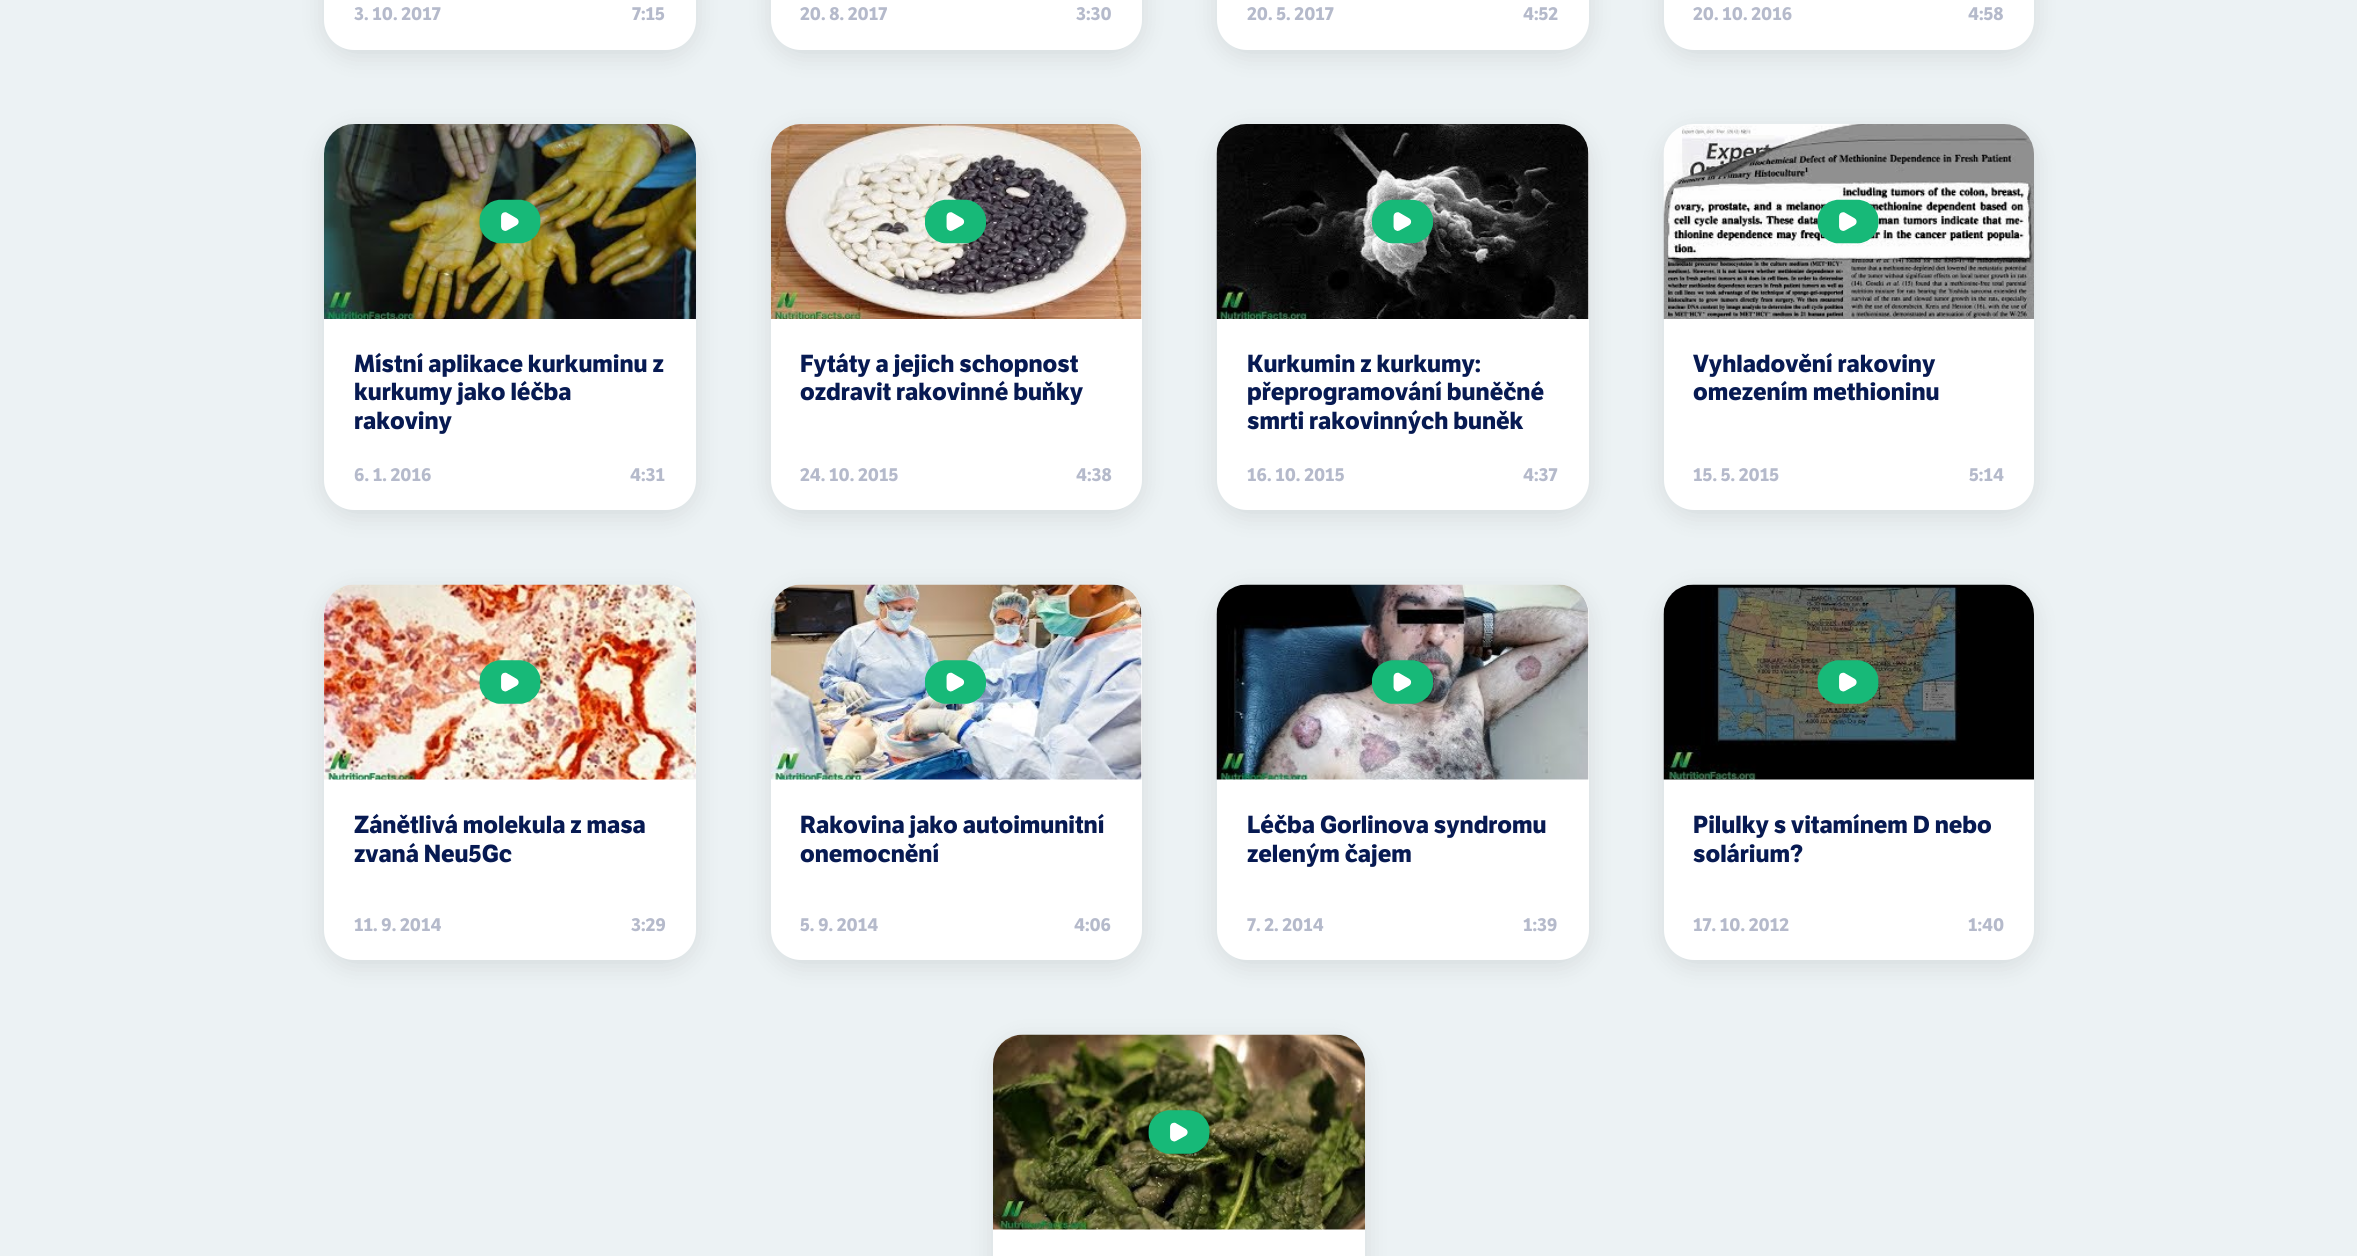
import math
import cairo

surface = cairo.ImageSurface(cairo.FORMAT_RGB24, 2357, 1256)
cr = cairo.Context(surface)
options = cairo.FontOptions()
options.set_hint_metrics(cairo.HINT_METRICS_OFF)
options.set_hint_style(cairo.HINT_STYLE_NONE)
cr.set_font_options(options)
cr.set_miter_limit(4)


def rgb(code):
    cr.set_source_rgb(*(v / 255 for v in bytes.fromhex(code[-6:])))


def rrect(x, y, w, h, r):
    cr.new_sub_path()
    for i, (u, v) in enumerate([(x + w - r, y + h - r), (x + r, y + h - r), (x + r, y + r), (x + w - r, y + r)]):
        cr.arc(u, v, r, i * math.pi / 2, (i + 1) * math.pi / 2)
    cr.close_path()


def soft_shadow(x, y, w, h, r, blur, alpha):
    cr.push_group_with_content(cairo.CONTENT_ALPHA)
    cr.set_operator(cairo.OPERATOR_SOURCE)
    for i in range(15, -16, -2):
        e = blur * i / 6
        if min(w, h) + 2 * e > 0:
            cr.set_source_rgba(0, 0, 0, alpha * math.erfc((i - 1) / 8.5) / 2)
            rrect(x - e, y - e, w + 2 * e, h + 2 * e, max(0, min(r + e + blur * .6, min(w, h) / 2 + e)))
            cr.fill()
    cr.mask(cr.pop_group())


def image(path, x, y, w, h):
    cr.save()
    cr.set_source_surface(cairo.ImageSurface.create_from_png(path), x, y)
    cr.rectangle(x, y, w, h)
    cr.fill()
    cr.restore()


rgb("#ecf2f4")
cr.paint()
rgb("#000000")
soft_shadow(324, -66, 372, 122, 30, 12, 0.1)
rgb("#ffffff")
rrect(324, -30, 372, 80, 30)
cr.fill()
rgb("#000000")
soft_shadow(771, -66, 371, 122, 30, 12, 0.1)
rgb("#ffffff")
rrect(771, -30, 371, 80, 30)
cr.fill()
rgb("#000000")
soft_shadow(1217, -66, 372, 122, 30, 12, 0.1)
rgb("#ffffff")
rrect(1217, -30, 372, 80, 30)
cr.fill()
rgb("#000000")
soft_shadow(1664, -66, 370, 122, 30, 12, 0.1)
rgb("#ffffff")
rrect(1664, -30, 370, 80, 30)
cr.fill()
rgb("#000000")
soft_shadow(324, 131, 372, 385, 30, 12, 0.1)
rgb("#ffffff")
rrect(324, 125, 372, 385, 30)
cr.fill()
image("img/1.png", 324, 124, 372, 195)
image("img/2.png", 479, 199, 62, 45)
rgb("#000000")
soft_shadow(771, 131, 371, 385, 30, 12, 0.1)
rgb("#ffffff")
rrect(771, 125, 371, 385, 30)
cr.fill()
image("img/3.png", 771, 124, 371, 195)
image("img/4.png", 925, 199, 61, 45)
rgb("#000000")
soft_shadow(1217, 131, 372, 385, 30, 12, 0.1)
rgb("#ffffff")
rrect(1217, 125, 372, 385, 30)
cr.fill()
image("img/5.png", 1216, 124, 373, 195)
image("img/6.png", 1372, 199, 61, 45)
rgb("#000000")
soft_shadow(1664, 131, 370, 385, 30, 12, 0.1)
rgb("#ffffff")
rrect(1664, 125, 370, 385, 30)
cr.fill()
image("img/7.png", 1663, 124, 371, 195)
image("img/8.png", 1817, 199, 62, 45)
rgb("#000000")
soft_shadow(324, 591, 372, 375, 30, 12, 0.1)
rgb("#ffffff")
rrect(324, 585, 372, 375, 30)
cr.fill()
image("img/9.png", 324, 584, 372, 196)
image("img/10.png", 479, 660, 62, 44)
rgb("#000000")
soft_shadow(771, 591, 371, 375, 30, 12, 0.1)
rgb("#ffffff")
rrect(771, 585, 371, 375, 30)
cr.fill()
image("img/11.png", 771, 584, 371, 196)
image("img/12.png", 925, 660, 61, 44)
rgb("#000000")
soft_shadow(1217, 591, 372, 375, 30, 12, 0.1)
rgb("#ffffff")
rrect(1217, 585, 372, 375, 30)
cr.fill()
image("img/13.png", 1216, 584, 373, 196)
image("img/14.png", 1372, 660, 61, 44)
rgb("#000000")
soft_shadow(1664, 591, 370, 375, 30, 12, 0.1)
rgb("#ffffff")
rrect(1664, 585, 370, 375, 30)
cr.fill()
image("img/15.png", 1663, 584, 371, 196)
image("img/16.png", 1817, 660, 62, 44)
rgb("#000000")
soft_shadow(993, 1041, 372, 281, 30, 12, 0.1)
rgb("#ffffff")
rrect(993, 1035, 372, 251, 30)
cr.fill()
image("img/17.png", 993, 1034, 372, 196)
image("img/18.png", 1148, 1110, 62, 44)
cr.select_font_face("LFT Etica", cairo.FONT_SLANT_NORMAL, cairo.FONT_WEIGHT_BOLD)
cr.set_font_size(18)
rgb("#b5bacb")
for x, y, s in [
    (354, 20, "3. 10. 2017"),
    (632, 20, "7:15"),
    (800, 20, "20. 8. 2017"),
    (1076, 20, "3:30"),
    (1247, 20, "20. 5. 2017"),
    (1523, 20, "4:52"),
    (1693, 20, "20. 10. 2016"),
    (1968, 20, "4:58"),
]:
    cr.move_to(x, y)
    cr.show_text(s)
cr.set_font_size(24)
rgb("#071a52")
for x, y, s in [
    (354, 372, "Místní aplikace kurkuminu z"),
    (354, 400, "kurkumy jako léčba"),
    (354, 429, "rakoviny"),
]:
    cr.move_to(x, y)
    cr.show_text(s)
cr.set_font_size(18)
rgb("#b5bacb")
cr.move_to(354, 481)
cr.show_text("6. 1. 2016")
cr.move_to(630, 481)
cr.show_text("4:31")
cr.set_font_size(24)
rgb("#071a52")
cr.move_to(800, 372)
cr.show_text("Fytáty a jejich schopnost")
cr.move_to(800, 400)
cr.show_text("ozdravit rakovinné buňky")
cr.set_font_size(18)
rgb("#b5bacb")
cr.move_to(800, 481)
cr.show_text("24. 10. 2015")
cr.move_to(1076, 481)
cr.show_text("4:38")
cr.set_font_size(24)
rgb("#071a52")
for x, y, s in [
    (1247, 372, "Kurkumin z kurkumy:"),
    (1247, 400, "přeprogramování buněčné"),
    (1247, 429, "smrti rakovinných buněk"),
]:
    cr.move_to(x, y)
    cr.show_text(s)
cr.set_font_size(18)
rgb("#b5bacb")
cr.move_to(1247, 481)
cr.show_text("16. 10. 2015")
cr.move_to(1523, 481)
cr.show_text("4:37")
cr.set_font_size(24)
rgb("#071a52")
cr.move_to(1693, 372)
cr.show_text("Vyhladovění rakoviny")
cr.move_to(1693, 400)
cr.show_text("omezením methioninu")
cr.set_font_size(18)
rgb("#b5bacb")
cr.move_to(1693, 481)
cr.show_text("15. 5. 2015")
cr.move_to(1969, 481)
cr.show_text("5:14")
cr.set_font_size(24)
rgb("#071a52")
cr.move_to(354, 833)
cr.show_text("Zánětlivá molekula z masa")
cr.move_to(354, 862)
cr.show_text("zvaná Neu5Gc")
cr.set_font_size(18)
rgb("#b5bacb")
cr.move_to(354, 931)
cr.show_text("11. 9. 2014")
cr.move_to(631, 931)
cr.show_text("3:29")
cr.set_font_size(24)
rgb("#071a52")
cr.move_to(800, 833)
cr.show_text("Rakovina jako autoimunitní")
cr.move_to(800, 862)
cr.show_text("onemocnění")
cr.set_font_size(18)
rgb("#b5bacb")
cr.move_to(800, 931)
cr.show_text("5. 9. 2014")
cr.move_to(1074, 931)
cr.show_text("4:06")
cr.set_font_size(24)
rgb("#071a52")
cr.move_to(1247, 833)
cr.show_text("Léčba Gorlinova syndromu")
cr.move_to(1247, 862)
cr.show_text("zeleným čajem")
cr.set_font_size(18)
rgb("#b5bacb")
cr.move_to(1247, 931)
cr.show_text("7. 2. 2014")
cr.move_to(1523, 931)
cr.show_text("1:39")
cr.set_font_size(24)
rgb("#071a52")
cr.move_to(1693, 833)
cr.show_text("Pilulky s vitamínem D nebo")
cr.move_to(1693, 862)
cr.show_text("solárium?")
cr.set_font_size(18)
rgb("#b5bacb")
cr.move_to(1693, 931)
cr.show_text("17. 10. 2012")
cr.move_to(1968, 931)
cr.show_text("1:40")
surface.write_to_png("page.png")
